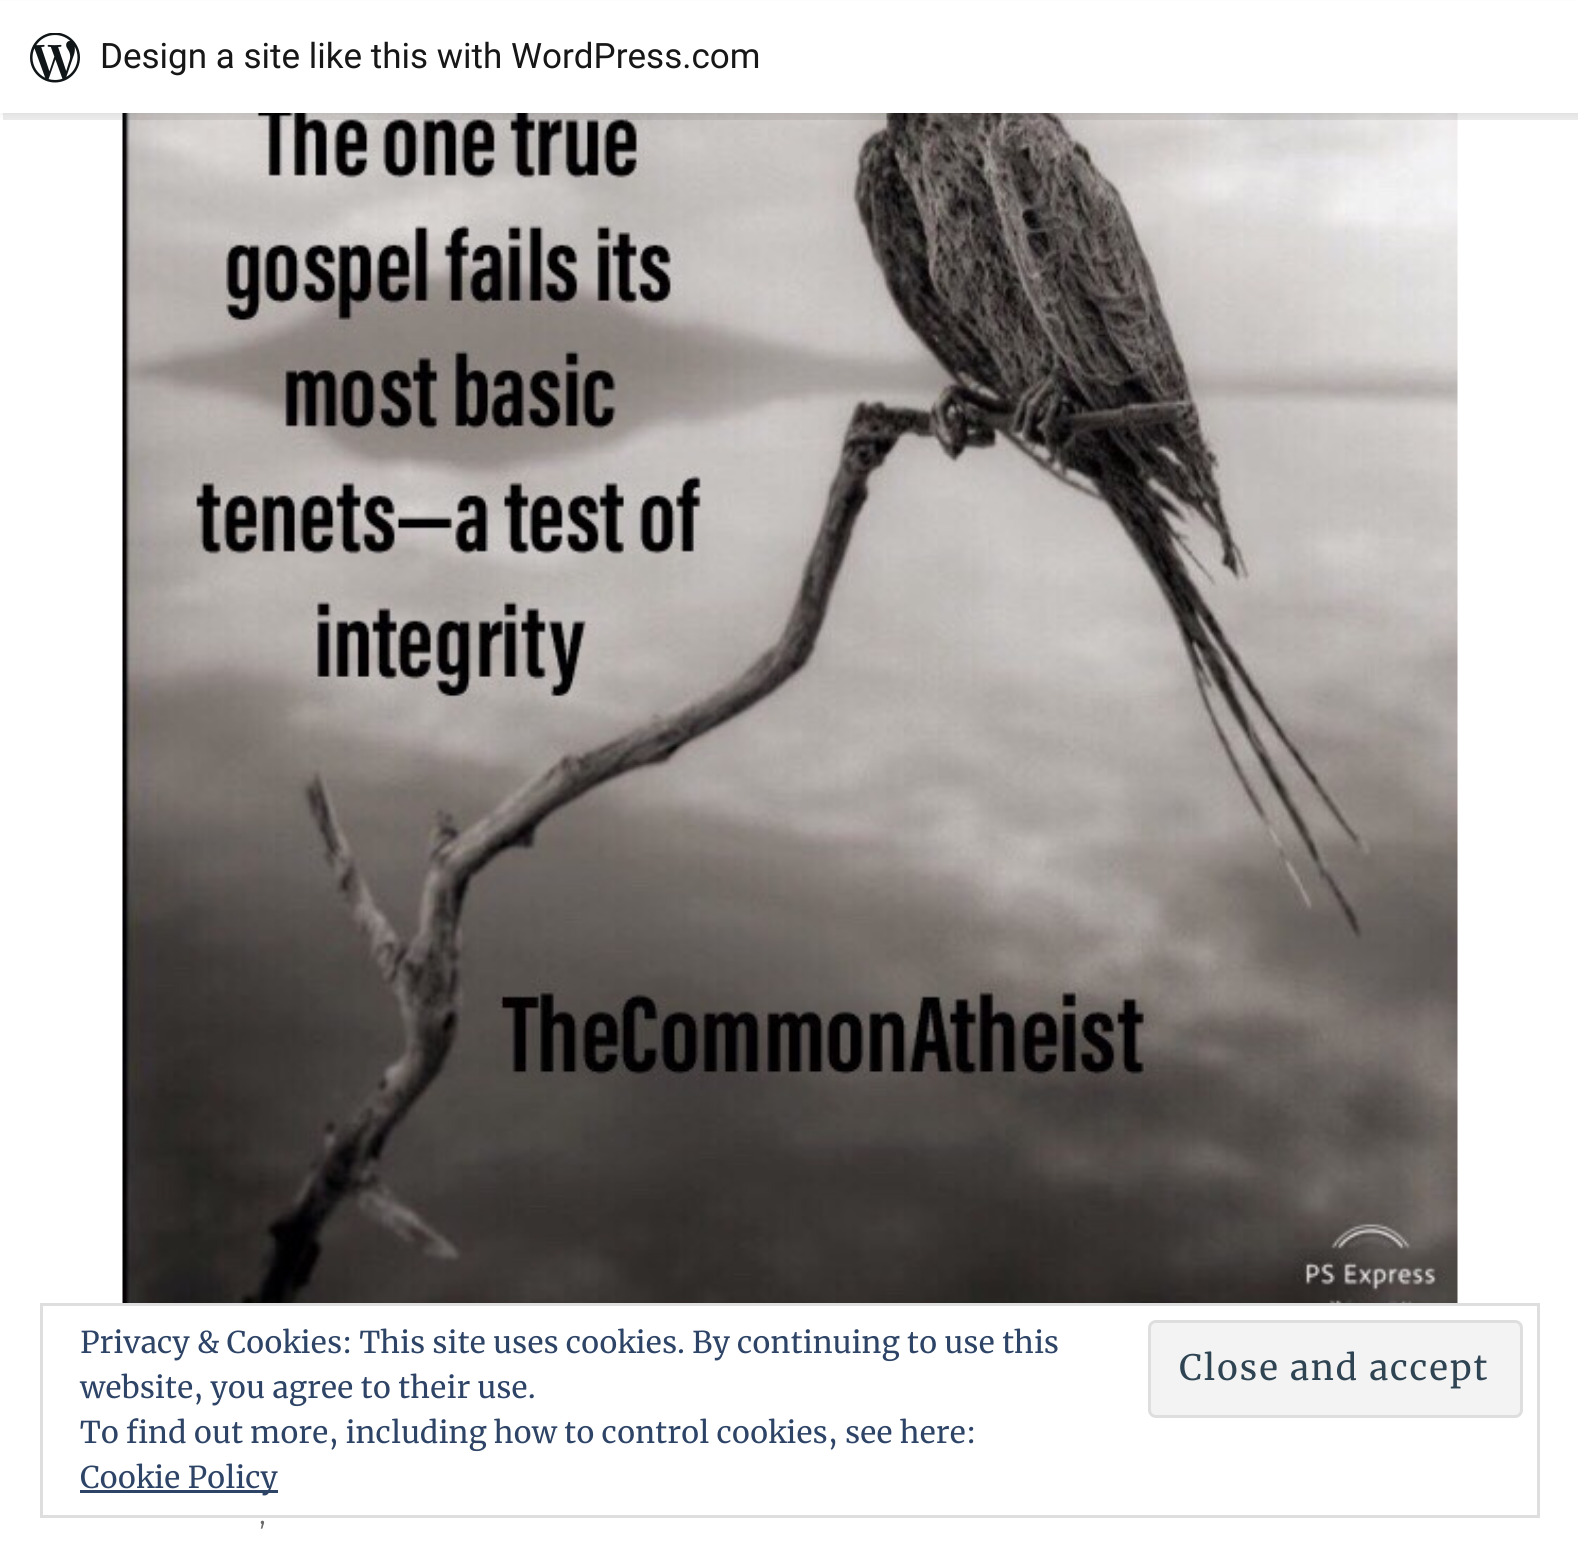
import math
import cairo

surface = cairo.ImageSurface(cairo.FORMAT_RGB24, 1578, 1557)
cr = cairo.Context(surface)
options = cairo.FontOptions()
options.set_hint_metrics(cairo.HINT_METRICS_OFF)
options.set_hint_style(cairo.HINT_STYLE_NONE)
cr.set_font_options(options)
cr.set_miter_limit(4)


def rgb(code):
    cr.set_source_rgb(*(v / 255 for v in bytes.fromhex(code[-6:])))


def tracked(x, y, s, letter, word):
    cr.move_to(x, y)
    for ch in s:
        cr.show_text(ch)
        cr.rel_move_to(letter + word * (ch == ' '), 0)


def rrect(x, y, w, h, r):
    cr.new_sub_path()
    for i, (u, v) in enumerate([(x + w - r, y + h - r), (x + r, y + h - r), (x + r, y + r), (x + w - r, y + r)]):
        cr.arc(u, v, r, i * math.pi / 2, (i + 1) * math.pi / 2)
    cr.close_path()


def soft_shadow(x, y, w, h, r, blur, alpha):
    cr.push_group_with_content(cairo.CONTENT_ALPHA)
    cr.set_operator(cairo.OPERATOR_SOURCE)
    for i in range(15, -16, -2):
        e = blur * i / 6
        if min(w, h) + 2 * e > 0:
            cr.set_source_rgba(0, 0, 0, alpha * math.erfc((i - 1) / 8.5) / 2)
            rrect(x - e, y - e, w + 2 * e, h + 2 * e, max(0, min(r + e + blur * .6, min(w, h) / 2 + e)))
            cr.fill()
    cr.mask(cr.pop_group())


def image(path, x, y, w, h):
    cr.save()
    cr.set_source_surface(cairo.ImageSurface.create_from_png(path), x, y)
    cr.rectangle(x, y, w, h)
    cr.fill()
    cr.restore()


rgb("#ffffff")
cr.paint()
image("img/2.png", 122, 113, 1336, 1190)
rgb("#000000")
soft_shadow(0, 3, 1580, 112, 0, 2.5, 0.05)
cr.set_source_rgba(0, 0, 0, 0.08)
cr.new_path()
cr.move_to(3, 112)
cr.line_to(3, 120)
cr.line_to(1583, 120)
cr.line_to(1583, 8)
cr.line_to(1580, 8)
cr.line_to(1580, 112)
cr.close_path()
cr.fill()
rgb("#ffffff")
cr.rectangle(0, 1, 1578, 112)
cr.fill()
image("img/1.png", 30, 33, 50, 50)
cr.rectangle(41.5, 1304.5, 1497, 212)
rgb("#dedede")
cr.set_line_width(3)
cr.stroke()
rgb("#f3f3f3")
rrect(1149.5, 1321.5, 372, 95, 6.5)
cr.fill_preserve()
rgb("#dedede")
cr.stroke()
rgb("#2e4467")
cr.rectangle(80, 1490, 198, 3)
cr.fill()
cr.select_font_face("Roboto")
cr.set_font_size(35)
rgb("#171717")
cr.move_to(100, 68)
cr.show_text("Design a site like this with WordPress.com")
cr.select_font_face("Merriweather")
cr.set_font_size(30)
rgb("#2e4467")
cr.move_to(80, 1353)
cr.show_text("Privacy & Cookies: This site uses cookies. By continuing to use this")
cr.move_to(80, 1398)
cr.show_text("website, you agree to their use.")
cr.set_font_size(35)
rgb("#2e4453")
tracked(1179, 1380, "Close and accept", 1.6, 0)
cr.set_font_size(30)
rgb("#2e4467")
cr.move_to(80, 1443)
cr.show_text("To find out more, including how to control cookies, see here:")
cr.move_to(80, 1488)
cr.show_text("Cookie Policy")
cr.select_font_face("Montserrat Thin")
cr.set_font_size(32)
rgb("#686868")
cr.move_to(259, 1524)
cr.show_text(",")
surface.write_to_png("page.png")
